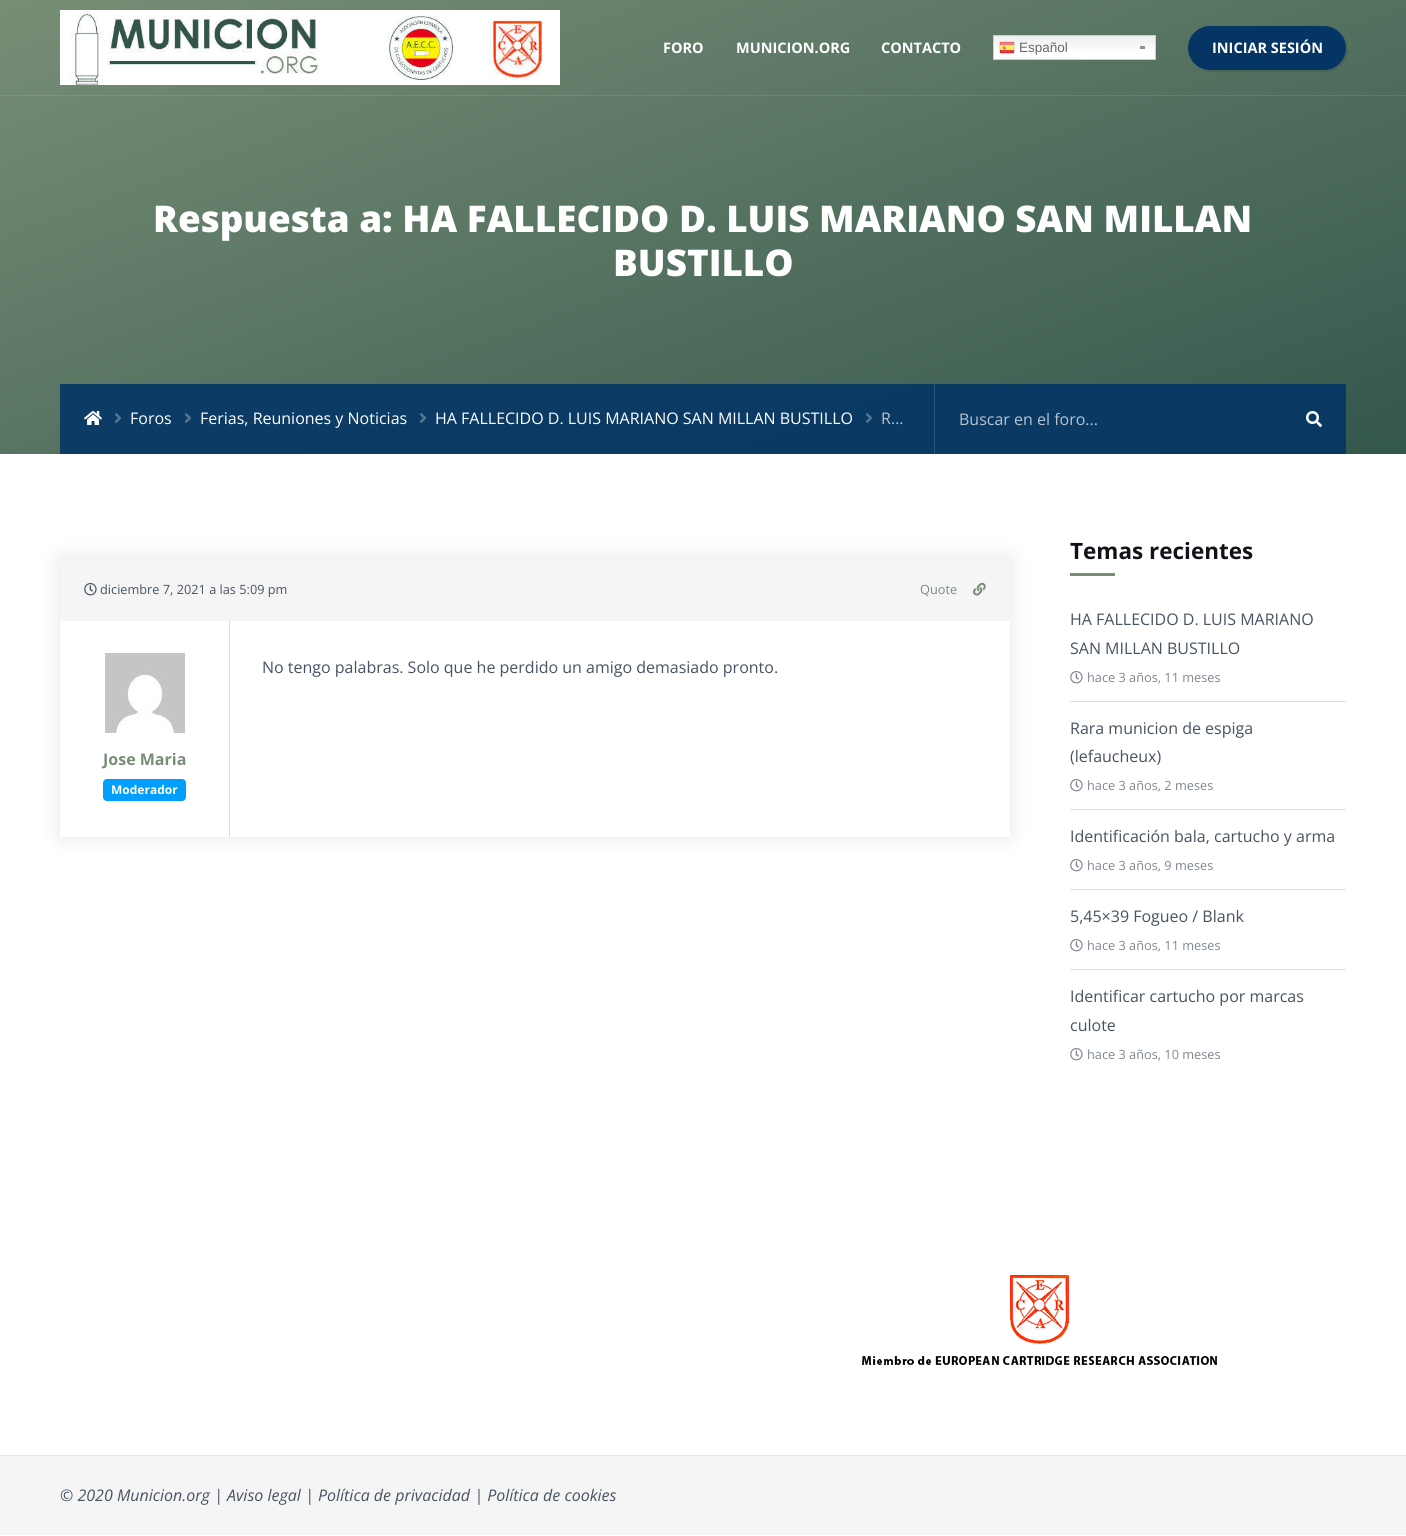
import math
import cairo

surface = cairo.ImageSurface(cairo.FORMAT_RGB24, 1406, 1536)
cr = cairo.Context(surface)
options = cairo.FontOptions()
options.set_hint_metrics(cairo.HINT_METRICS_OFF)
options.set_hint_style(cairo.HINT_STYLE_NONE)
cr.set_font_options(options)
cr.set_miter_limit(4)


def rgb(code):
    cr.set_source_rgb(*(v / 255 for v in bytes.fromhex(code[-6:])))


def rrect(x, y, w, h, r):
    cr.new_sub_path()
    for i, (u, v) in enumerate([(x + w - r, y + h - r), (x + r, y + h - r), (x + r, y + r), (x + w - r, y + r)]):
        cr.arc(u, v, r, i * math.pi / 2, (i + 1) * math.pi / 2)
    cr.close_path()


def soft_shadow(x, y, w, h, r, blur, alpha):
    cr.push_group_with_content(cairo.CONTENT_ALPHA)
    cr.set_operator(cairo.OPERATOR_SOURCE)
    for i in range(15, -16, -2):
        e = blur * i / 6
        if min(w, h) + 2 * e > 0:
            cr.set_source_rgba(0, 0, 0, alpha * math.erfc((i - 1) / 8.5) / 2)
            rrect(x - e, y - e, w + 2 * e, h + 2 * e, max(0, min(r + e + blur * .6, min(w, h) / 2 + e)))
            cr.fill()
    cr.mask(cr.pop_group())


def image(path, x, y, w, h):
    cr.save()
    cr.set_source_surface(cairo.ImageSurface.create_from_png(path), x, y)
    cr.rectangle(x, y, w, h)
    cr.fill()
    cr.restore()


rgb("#ffffff")
cr.paint()
gradient = cairo.LinearGradient(548, -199, 858, 653)
gradient.add_color_stop_rgba(0, 0.467, 0.557, 0.463, 1)
gradient.add_color_stop_rgba(1, 0.204, 0.341, 0.298, 1)
cr.set_source(gradient)
cr.rectangle(0, 0, 1406, 454)
cr.fill()
gradient = cairo.LinearGradient(548, -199, 858, 653)
gradient.add_color_stop_rgba(0, 0.522, 0.6, 0.518, 1)
gradient.add_color_stop_rgba(1, 0.282, 0.408, 0.369, 1)
cr.set_source(gradient)
cr.rectangle(0, 95, 1406, 1)
cr.fill()
gradient = cairo.LinearGradient(548, -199, 858, 653)
gradient.add_color_stop_rgba(0, 0.059, 0.243, 0.404, 1)
gradient.add_color_stop_rgba(1, 0.035, 0.22, 0.388, 1)
cr.set_source(gradient)
cr.rectangle(60, 384, 1286, 70)
cr.fill()
image("img/1.png", 60, 10, 500, 75)
rgb("#ffffff")
cr.rectangle(994, 49, 161, 10)
cr.fill()
image("img/2.png", 994, 36, 161, 13)
rgb("#8f8f8f")
cr.rectangle(1140, 46, 5, 3)
cr.fill()
cr.rectangle(993.5, 35.5, 162, 24)
rgb("#cccccc")
cr.set_line_width(1)
cr.stroke()
image("img/3.png", 999, 41, 16, 14)
cr.set_source_rgba(0, 0, 0, 0.1)
cr.new_path()
cr.move_to(1195, 65)
cr.curve_to(1200, 69, 1205, 72, 1212, 72)
cr.line_to(1326, 72)
cr.curve_to(1338, 72, 1348, 62, 1348, 50)
cr.curve_to(1348, 43, 1345, 38, 1341, 33)
cr.curve_to(1344, 37, 1346, 42, 1346, 48)
cr.curve_to(1346, 60, 1336, 70, 1324, 70)
cr.line_to(1210, 70)
cr.curve_to(1204, 70, 1199, 68, 1195, 65)
cr.close_path()
cr.fill()
rgb("#043565")
rrect(1188, 26, 158, 44, 22)
cr.fill()
image("img/4.png", 84, 411, 18, 14)
image("img/5.png", 114, 413, 7, 10)
image("img/6.png", 184, 413, 7, 10)
image("img/7.png", 419, 413, 7, 10)
image("img/8.png", 865, 413, 7, 10)
rgb("#2f577b")
cr.rectangle(934, 384, 1, 70)
cr.fill()
image("img/9.png", 1306, 411, 16, 16)
cr.save()
cr.set_fill_rule(cairo.FILL_RULE_EVEN_ODD)
cr.new_path()
cr.move_to(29, 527)
cr.line_to(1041, 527)
cr.line_to(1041, 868)
cr.line_to(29, 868)
cr.close_path()
cr.move_to(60, 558)
cr.line_to(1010, 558)
cr.line_to(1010, 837)
cr.line_to(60, 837)
cr.close_path()
cr.clip()
rgb("#000000")
soft_shadow(60, 558, 950, 279, 0, 10, 0.1)
cr.restore()
rgb("#f5f5f5")
cr.rectangle(60, 558, 950, 63)
cr.fill()
image("img/10.png", 84, 583, 13, 13)
image("img/11.png", 973, 582, 13, 14)
rgb("#dddddd")
cr.rectangle(229, 621, 1, 216)
cr.fill()
image("img/12.png", 105, 653, 80, 80)
rgb("#009ffd")
rrect(103, 779, 83, 22, 4)
cr.fill()
rgb("#778e76")
cr.rectangle(1070, 573, 45, 3)
cr.fill()
rgb("#dddddd")
cr.rectangle(1070, 701, 276, 1)
cr.fill()
image("img/13.png", 1070, 671, 13, 13)
cr.rectangle(1070, 809, 276, 1)
cr.fill()
image("img/13.png", 1070, 779, 13, 13)
cr.rectangle(1070, 889, 276, 1)
cr.fill()
image("img/13.png", 1070, 859, 13, 13)
cr.rectangle(1070, 969, 276, 1)
cr.fill()
image("img/13.png", 1070, 939, 13, 13)
image("img/13.png", 1070, 1048, 13, 13)
rgb("#f5f5f5")
cr.rectangle(0, 1456, 1406, 79)
cr.fill()
rgb("#e6e6e6")
cr.rectangle(0, 1455, 1406, 1)
cr.fill()
image("img/14.png", 862, 1275, 355, 90)
cr.select_font_face("Open Sans", cairo.FONT_SLANT_NORMAL, cairo.FONT_WEIGHT_BOLD)
cr.set_font_size(14.5)
rgb("#ffffff")
for x, y, s in [
    (663, 53, "FORO"),
    (736, 53, "MUNICION.ORG"),
    (881, 53, "CONTACTO"),
]:
    cr.move_to(x, y)
    cr.show_text(s)
cr.select_font_face("Liberation Sans")
cr.set_font_size(13.5)
rgb("#666666")
cr.move_to(1019, 52)
cr.show_text("Español")
cr.select_font_face("Open Sans", cairo.FONT_SLANT_NORMAL, cairo.FONT_WEIGHT_BOLD)
cr.set_font_size(14.5)
rgb("#ffffff")
cr.move_to(1212, 53)
cr.show_text("INICIAR SESIÓN")
cr.select_font_face("Open Sans ExtraBold")
cr.set_font_size(36.8)
cr.move_to(153, 232)
cr.show_text("Respuesta a: HA FALLECIDO D. LUIS MARIANO SAN MILLAN")
cr.move_to(613, 276)
cr.show_text("BUSTILLO")
cr.select_font_face("Open Sans")
cr.set_font_size(16)
for x, y, s in [
    (130, 424, "Foros"),
    (200, 424, "Ferias, Reuniones y Noticias"),
    (435, 424, "HA FALLECIDO D. LUIS MARIANO SAN MILLAN BUSTILLO"),
]:
    cr.move_to(x, y)
    cr.show_text(s)
rgb("#b6c4d0")
cr.move_to(881, 424)
cr.show_text("R…")
cr.move_to(959, 425)
cr.show_text("Buscar en el foro...")
cr.set_font_size(12.75)
rgb("#465362")
cr.move_to(100, 594)
cr.show_text("diciembre 7, 2021 a las 5:09 pm")
rgb("#778e76")
cr.move_to(920, 594)
cr.show_text("Quote")
cr.set_font_size(16)
rgb("#465362")
cr.move_to(262, 673)
cr.show_text("No tengo palabras. Solo que he perdido un amigo demasiado pronto.")
cr.select_font_face("Open Sans", cairo.FONT_SLANT_NORMAL, cairo.FONT_WEIGHT_BOLD)
rgb("#778e76")
cr.move_to(103, 765)
cr.show_text("Jose Maria")
cr.set_font_size(12)
rgb("#ffffff")
cr.move_to(111, 794)
cr.show_text("Moderador")
cr.set_font_size(22.5)
rgb("#101419")
cr.move_to(1070, 559)
cr.show_text("Temas recientes")
cr.select_font_face("Open Sans")
cr.set_font_size(16)
rgb("#465362")
cr.move_to(1070, 625)
cr.show_text("HA FALLECIDO D. LUIS MARIANO")
cr.move_to(1070, 654)
cr.show_text("SAN MILLAN BUSTILLO")
cr.set_font_size(12.75)
rgb("#7e8791")
cr.move_to(1087, 682)
cr.show_text("hace 3 años, 11 meses")
cr.set_font_size(16)
rgb("#465362")
cr.move_to(1070, 734)
cr.show_text("Rara municion de espiga")
cr.move_to(1070, 762)
cr.show_text("(lefaucheux)")
cr.set_font_size(12.75)
rgb("#7e8791")
cr.move_to(1087, 790)
cr.show_text("hace 3 años, 2 meses")
cr.set_font_size(16)
rgb("#465362")
cr.move_to(1070, 842)
cr.show_text("Identificación bala, cartucho y arma")
cr.set_font_size(12.75)
rgb("#7e8791")
cr.move_to(1087, 870)
cr.show_text("hace 3 años, 9 meses")
cr.set_font_size(16)
rgb("#465362")
cr.move_to(1070, 922)
cr.show_text("5,45×39 Fogueo / Blank")
cr.set_font_size(12.75)
rgb("#7e8791")
cr.move_to(1087, 950)
cr.show_text("hace 3 años, 11 meses")
cr.set_font_size(16)
rgb("#465362")
cr.move_to(1070, 1002)
cr.show_text("Identificar cartucho por marcas")
cr.move_to(1070, 1031)
cr.show_text("culote")
cr.set_font_size(12.75)
rgb("#7e8791")
cr.move_to(1087, 1059)
cr.show_text("hace 3 años, 10 meses")
cr.select_font_face("Open Sans", cairo.FONT_SLANT_ITALIC)
cr.set_font_size(16)
rgb("#465362")
cr.move_to(60, 1501)
cr.show_text("© 2020 Municion.org | Aviso legal | Política de privacidad | Política de cookies")
surface.write_to_png("page.png")
